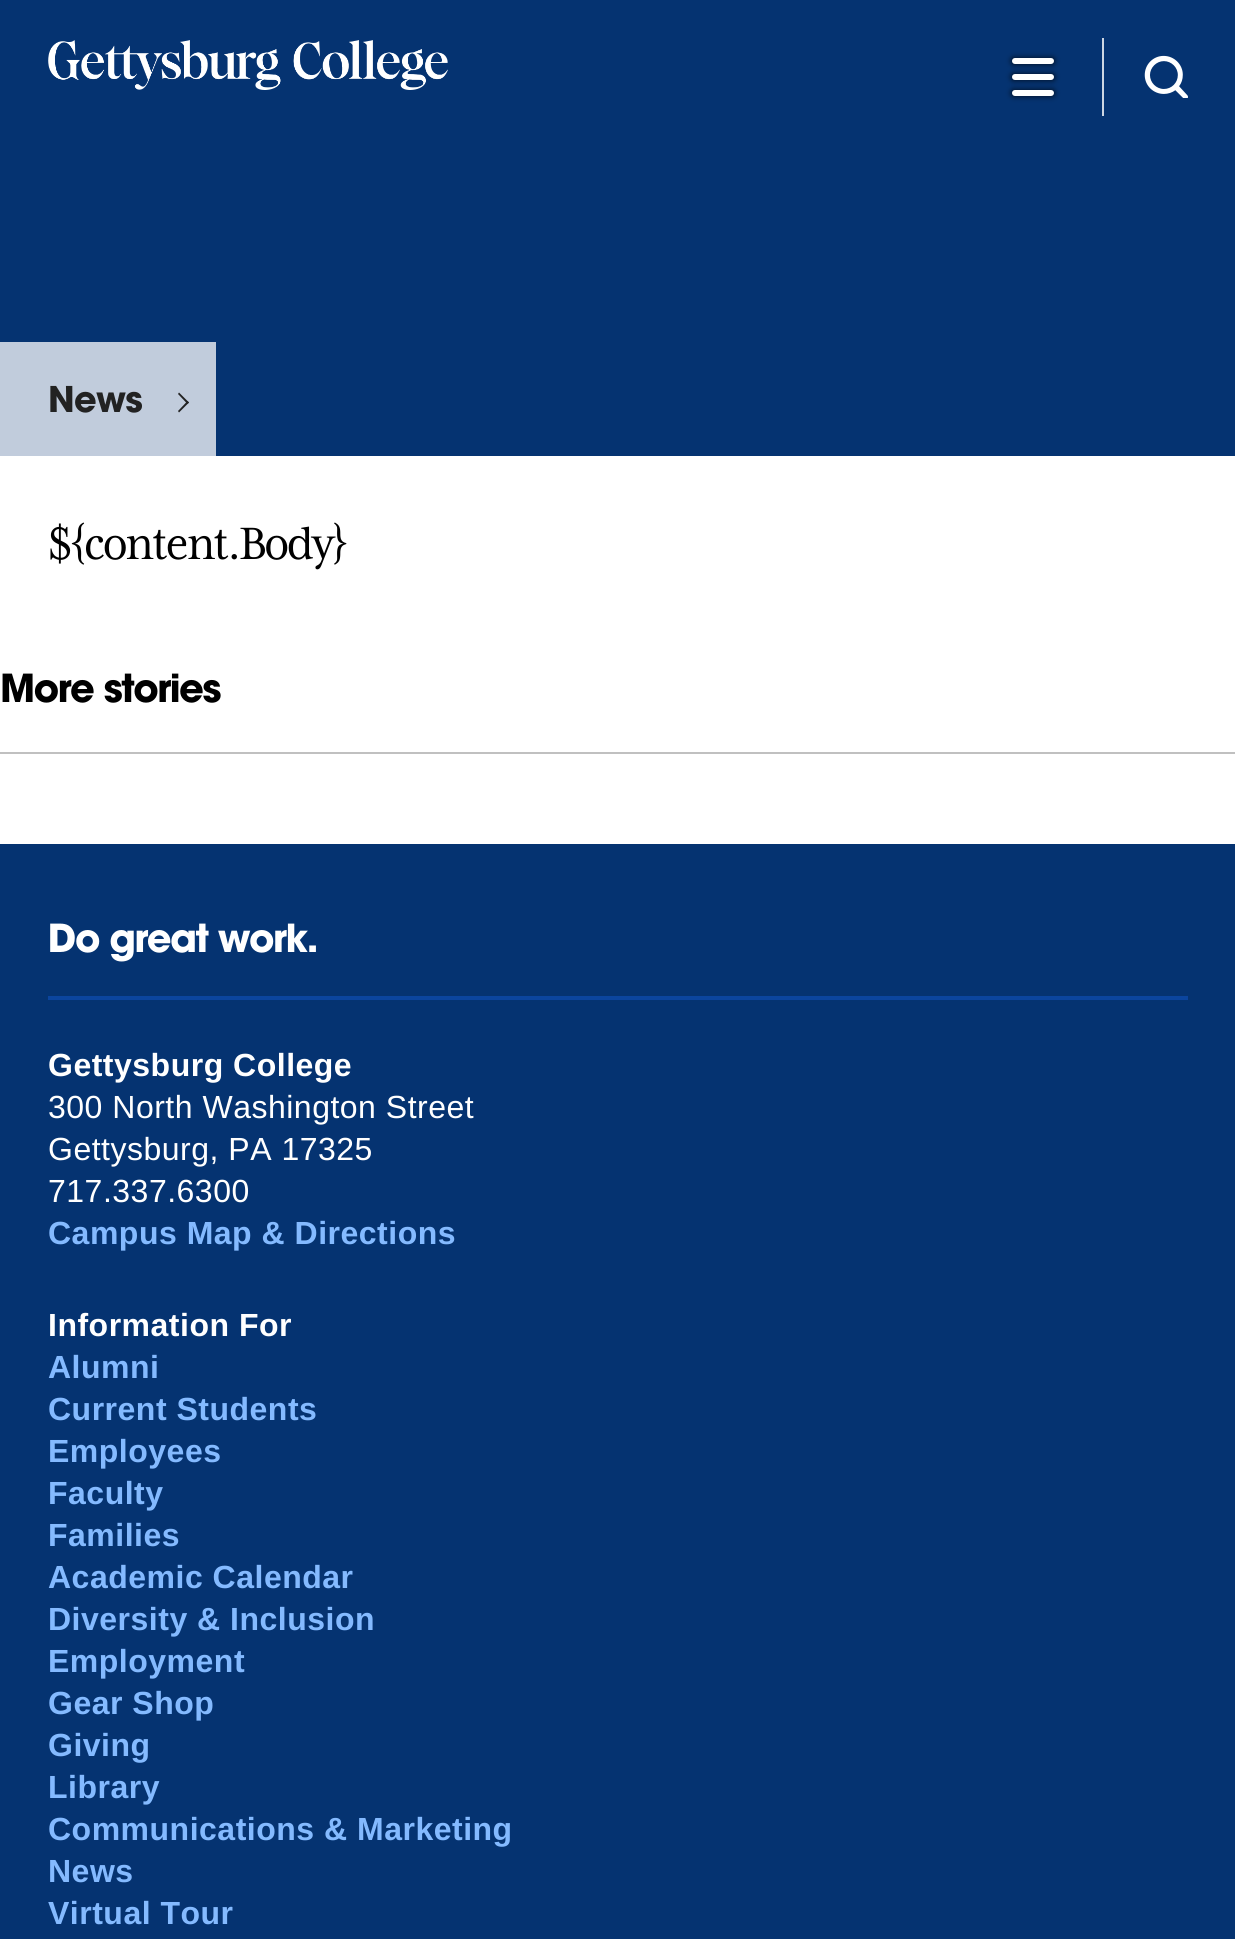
import math
import cairo

surface = cairo.ImageSurface(cairo.FORMAT_RGB24, 1235, 1939)
cr = cairo.Context(surface)
options = cairo.FontOptions()
options.set_hint_metrics(cairo.HINT_METRICS_OFF)
options.set_hint_style(cairo.HINT_STYLE_NONE)
cr.set_font_options(options)
cr.set_miter_limit(4)


def rgb(code):
    cr.set_source_rgb(*(v / 255 for v in bytes.fromhex(code[-6:])))


def tracked(x, y, s, letter, word):
    cr.move_to(x, y)
    for ch in s:
        cr.show_text(ch)
        cr.rel_move_to(letter + word * (ch == ' '), 0)


def rrect(x, y, w, h, r):
    cr.new_sub_path()
    for i, (u, v) in enumerate([(x + w - r, y + h - r), (x + r, y + h - r), (x + r, y + r), (x + w - r, y + r)]):
        cr.arc(u, v, r, i * math.pi / 2, (i + 1) * math.pi / 2)
    cr.close_path()


def soft_shadow(x, y, w, h, r, blur, alpha):
    cr.push_group_with_content(cairo.CONTENT_ALPHA)
    cr.set_operator(cairo.OPERATOR_SOURCE)
    for i in range(15, -16, -2):
        e = blur * i / 6
        if min(w, h) + 2 * e > 0:
            cr.set_source_rgba(0, 0, 0, alpha * math.erfc((i - 1) / 8.5) / 2)
            rrect(x - e, y - e, w + 2 * e, h + 2 * e, max(0, min(r + e + blur * .6, min(w, h) / 2 + e)))
            cr.fill()
    cr.mask(cr.pop_group())


def image(path, x, y, w, h):
    cr.save()
    cr.set_source_surface(cairo.ImageSurface.create_from_png(path), x, y)
    cr.rectangle(x, y, w, h)
    cr.fill()
    cr.restore()


rgb("#ffffff")
cr.paint()
rgb("#053371")
cr.rectangle(0, 0, 1235, 456)
cr.fill()
image("img/1.png", 48, 40, 400, 50)
rgb("#000000")
soft_shadow(1012, 58, 42, 6, 3, 3, 0.8)
rgb("#ffffff")
rrect(1012, 58, 42, 6, 3)
cr.fill()
rgb("#000000")
soft_shadow(1012, 74, 42, 6, 3, 3, 0.8)
rgb("#ffffff")
rrect(1012, 74, 42, 6, 3)
cr.fill()
rgb("#000000")
soft_shadow(1012, 90, 42, 6, 3, 3, 0.8)
rgb("#ffffff")
rrect(1012, 90, 42, 6, 3)
cr.fill()
rgb("#cdd6e3")
cr.rectangle(1102, 38, 2, 78)
cr.fill()
image("img/2.png", 1144, 55, 44, 43)
rgb("#c1ccdc")
cr.rectangle(0, 342, 216, 114)
cr.fill()
image("img/3.png", 50, 385, 92, 28)
rgb("#222222")
cr.new_path()
cr.move_to(178, 394)
cr.line_to(179, 392.5)
cr.line_to(189, 402.5)
cr.line_to(187.5, 404)
cr.close_path()
cr.fill()
cr.new_path()
cr.move_to(178, 411)
cr.line_to(187.5, 401)
cr.line_to(189, 402.5)
cr.line_to(179, 412.5)
cr.close_path()
cr.fill()
rgb("#c0c0c0")
cr.rectangle(0, 752, 1235, 2)
cr.fill()
image("img/4.png", 2, 673, 219, 30)
rgb("#053371")
cr.rectangle(0, 844, 1235, 1095)
cr.fill()
rgb("#0b459e")
cr.rectangle(48, 996, 1140, 4)
cr.fill()
image("img/5.png", 50, 923, 266, 39)
cr.select_font_face("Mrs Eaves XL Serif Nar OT")
cr.set_font_size(52)
rgb("#000000")
tracked(48, 559, "${content.Body}", -2.1, 0)
cr.select_font_face("Liberation Sans", cairo.FONT_SLANT_NORMAL, cairo.FONT_WEIGHT_BOLD)
cr.set_font_size(32)
rgb("#ffffff")
tracked(48, 1076, "Gettysburg College", 0.5, 0)
cr.select_font_face("Liberation Sans")
for x, y, s in [
    (48, 1118, "300 North Washington Street"),
    (48, 1160, "Gettysburg, PA 17325"),
    (48, 1202, "717.337.6300"),
]:
    tracked(x, y, s, 0.5, 0)
cr.select_font_face("Liberation Sans", cairo.FONT_SLANT_NORMAL, cairo.FONT_WEIGHT_BOLD)
rgb("#84baff")
tracked(48, 1244, "Campus Map & Directions", 0.5, 0)
rgb("#ffffff")
tracked(48, 1336, "Information For", 0.5, 0)
rgb("#84baff")
for x, y, s in [
    (48, 1378, "Alumni"),
    (48, 1420, "Current Students"),
    (48, 1462, "Employees"),
    (48, 1504, "Faculty"),
    (48, 1546, "Families"),
    (48, 1588, "Academic Calendar"),
    (48, 1630, "Diversity & Inclusion"),
    (48, 1672, "Employment"),
    (48, 1714, "Gear Shop"),
    (48, 1756, "Giving"),
    (48, 1798, "Library"),
    (48, 1840, "Communications & Marketing"),
    (48, 1882, "News"),
    (48, 1924, "Virtual Tour"),
]:
    tracked(x, y, s, 0.5, 0)
surface.write_to_png("page.png")
